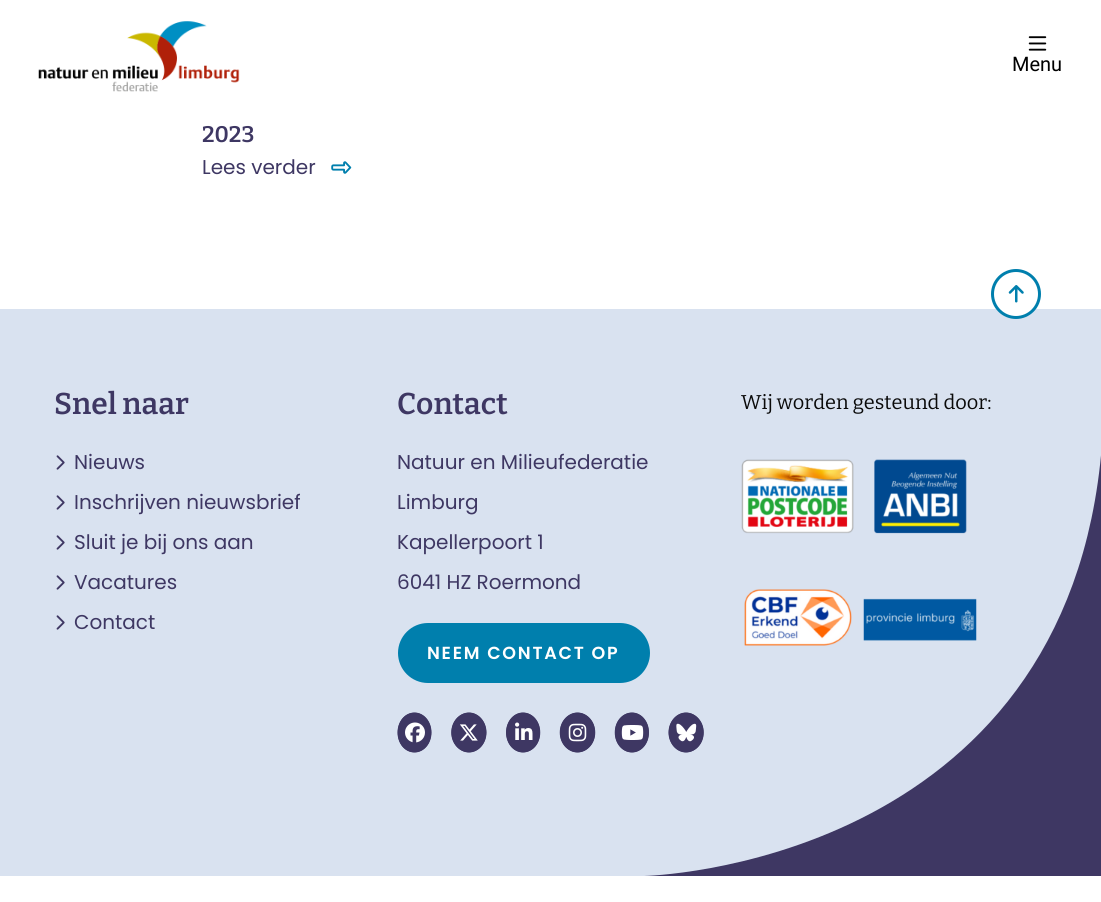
import math
import cairo

surface = cairo.ImageSurface(cairo.FORMAT_RGB24, 1101, 902)
cr = cairo.Context(surface)
options = cairo.FontOptions()
options.set_hint_metrics(cairo.HINT_METRICS_OFF)
options.set_hint_style(cairo.HINT_STYLE_NONE)
cr.set_font_options(options)
cr.set_miter_limit(4)


def rgb(code):
    cr.set_source_rgb(*(v / 255 for v in bytes.fromhex(code[-6:])))


def tracked(x, y, s, letter, word):
    cr.move_to(x, y)
    for ch in s:
        cr.show_text(ch)
        cr.rel_move_to(letter + word * (ch == ' '), 0)


def rrect(x, y, w, h, r):
    cr.new_sub_path()
    for i, (u, v) in enumerate([(x + w - r, y + h - r), (x + r, y + h - r), (x + r, y + r), (x + w - r, y + r)]):
        cr.arc(u, v, r, i * math.pi / 2, (i + 1) * math.pi / 2)
    cr.close_path()


def image(path, x, y, w, h):
    cr.save()
    cr.set_source_surface(cairo.ImageSurface.create_from_png(path), x, y)
    cr.rectangle(x, y, w, h)
    cr.fill()
    cr.restore()


rgb("#ffffff")
cr.paint()
image("img/1.png", 38, 21, 202, 71)
image("img/2.png", 1028, 36, 19, 15)
image("img/3.png", 331, 161, 21, 13)
rgb("#d9e2f0")
cr.rectangle(0, 309, 1101, 567)
cr.fill()
rgb("#ffffff")
cr.arc(1016, 294, 23.5, 0, 2 * math.pi)
cr.fill_preserve()
rgb("#007fad")
cr.set_line_width(3)
cr.stroke()
image("img/4.png", 1008, 285, 16, 18)
image("img/5.png", 56, 455, 9, 15)
image("img/5.png", 56, 495, 9, 15)
image("img/5.png", 56, 535, 9, 15)
image("img/5.png", 56, 575, 9, 15)
image("img/5.png", 56, 615, 9, 15)
rgb("#3e3763")
cr.new_path()
cr.move_to(644, 876)
cr.curve_to(644, 876, 1069, 867, 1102, 444)
cr.line_to(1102, 876)
cr.close_path()
cr.fill()
rgb("#007fad")
rrect(398, 623, 252, 60, 30)
cr.fill()
rgb("#3e3763")
cr.new_path()
cr.move_to(414.5, 712.5)
cr.curve_to(424, 712.5, 431.5, 721.5, 431.5, 732.5)
cr.curve_to(431.5, 743.5, 424, 752.5, 414.5, 752.5)
cr.curve_to(405, 752.5, 397.5, 743.5, 397.5, 732.5)
cr.curve_to(397.5, 721.5, 405, 712.5, 414.5, 712.5)
cr.close_path()
cr.fill()
cr.new_path()
cr.move_to(414.5, 714)
cr.curve_to(423, 714, 430, 722, 430, 732.5)
cr.curve_to(430, 743, 423, 751, 414.5, 751)
cr.curve_to(405.5, 751, 399, 743, 399, 732.5)
cr.curve_to(399, 722, 405.5, 714, 414.5, 714)
cr.close_path()
cr.set_line_width(2.5)
cr.stroke()
image("img/6.png", 405, 722, 20, 21)
cr.new_path()
cr.move_to(469, 712.5)
cr.curve_to(478.5, 712.5, 486.5, 721.5, 486.5, 732.5)
cr.curve_to(486.5, 743.5, 478.5, 752.5, 469, 752.5)
cr.curve_to(459.5, 752.5, 451.5, 743.5, 451.5, 732.5)
cr.curve_to(451.5, 721.5, 459.5, 712.5, 469, 712.5)
cr.close_path()
cr.fill()
cr.new_path()
cr.move_to(469, 714)
cr.curve_to(477.5, 714, 485, 722, 485, 732.5)
cr.curve_to(485, 743, 477.5, 751, 469, 751)
cr.curve_to(460, 751, 452.5, 743, 452.5, 732.5)
cr.curve_to(452.5, 722, 460, 714, 469, 714)
cr.close_path()
cr.stroke()
image("img/7.png", 460, 724, 18, 17)
cr.new_path()
cr.move_to(523, 712.5)
cr.curve_to(532.5, 712.5, 540, 721.5, 540, 732.5)
cr.curve_to(540, 743.5, 532.5, 752.5, 523, 752.5)
cr.curve_to(513.5, 752.5, 506, 743.5, 506, 732.5)
cr.curve_to(506, 721.5, 513.5, 712.5, 523, 712.5)
cr.close_path()
cr.fill()
cr.new_path()
cr.move_to(523, 714)
cr.curve_to(532, 714, 539, 722, 539, 732.5)
cr.curve_to(539, 743, 532, 751, 523, 751)
cr.curve_to(514.5, 751, 507.5, 743, 507.5, 732.5)
cr.curve_to(507.5, 722, 514.5, 714, 523, 714)
cr.close_path()
cr.stroke()
image("img/8.png", 515, 722, 18, 18)
cr.new_path()
cr.move_to(577.5, 712.5)
cr.curve_to(587, 712.5, 595, 721.5, 595, 732.5)
cr.curve_to(595, 743.5, 587, 752.5, 577.5, 752.5)
cr.curve_to(568, 752.5, 560, 743.5, 560, 732.5)
cr.curve_to(560, 721.5, 568, 712.5, 577.5, 712.5)
cr.close_path()
cr.fill()
cr.new_path()
cr.move_to(577.5, 714)
cr.curve_to(586.5, 714, 594, 722, 594, 732.5)
cr.curve_to(594, 743, 586.5, 751, 577.5, 751)
cr.curve_to(568.5, 751, 561, 743, 561, 732.5)
cr.curve_to(561, 722, 568.5, 714, 577.5, 714)
cr.close_path()
cr.stroke()
image("img/9.png", 568, 723, 19, 19)
cr.new_path()
cr.move_to(632, 712.5)
cr.curve_to(641.5, 712.5, 649, 721.5, 649, 732.5)
cr.curve_to(649, 743.5, 641.5, 752.5, 632, 752.5)
cr.curve_to(622.5, 752.5, 615, 743.5, 615, 732.5)
cr.curve_to(615, 721.5, 622.5, 712.5, 632, 712.5)
cr.close_path()
cr.fill()
cr.new_path()
cr.move_to(632, 714)
cr.curve_to(640.5, 714, 647.5, 722, 647.5, 732.5)
cr.curve_to(647.5, 743, 640.5, 751, 632, 751)
cr.curve_to(623, 751, 616, 743, 616, 732.5)
cr.curve_to(616, 722, 623, 714, 632, 714)
cr.close_path()
cr.stroke()
image("img/10.png", 621, 725, 23, 15)
cr.new_path()
cr.move_to(686, 712.5)
cr.curve_to(695.5, 712.5, 703.5, 721.5, 703.5, 732.5)
cr.curve_to(703.5, 743.5, 695.5, 752.5, 686, 752.5)
cr.curve_to(676.5, 752.5, 668.5, 743.5, 668.5, 732.5)
cr.curve_to(668.5, 721.5, 676.5, 712.5, 686, 712.5)
cr.close_path()
cr.fill()
cr.new_path()
cr.move_to(686, 714)
cr.curve_to(695, 714, 702.5, 722, 702.5, 732.5)
cr.curve_to(702.5, 743, 695, 751, 686, 751)
cr.curve_to(677.5, 751, 670, 743, 670, 732.5)
cr.curve_to(670, 722, 677.5, 714, 686, 714)
cr.close_path()
cr.stroke()
image("img/11.png", 676, 723, 21, 19)
image("img/12.png", 741, 459, 113, 75)
image("img/13.png", 874, 459, 93, 75)
image("img/14.png", 744, 589, 108, 57)
image("img/15.png", 863, 598, 114, 43)
cr.select_font_face("Roboto")
cr.set_font_size(20)
rgb("#000000")
cr.move_to(1012, 71)
cr.show_text("Menu")
cr.select_font_face("Bitter SemiBold")
cr.set_font_size(22.5)
rgb("#3e3763")
cr.move_to(202, 142)
cr.show_text("2023")
cr.select_font_face("Poppins")
cr.set_font_size(20)
cr.move_to(202, 174)
cr.show_text("Lees verder")
cr.select_font_face("Bitter SemiBold")
cr.set_font_size(30)
cr.move_to(54, 414)
cr.show_text("Snel naar")
cr.select_font_face("Poppins")
cr.set_font_size(20)
for x, y, s in [
    (74, 469, "Nieuws"),
    (74, 509, "Inschrijven nieuwsbrief"),
    (74, 549, "Sluit je bij ons aan"),
    (74, 589, "Vacatures"),
    (74, 629, "Contact"),
]:
    cr.move_to(x, y)
    cr.show_text(s)
cr.select_font_face("Bitter SemiBold")
cr.set_font_size(30)
cr.move_to(397, 414)
cr.show_text("Contact")
cr.select_font_face("Poppins")
cr.set_font_size(20)
for x, y, s in [
    (397, 469, "Natuur en Milieufederatie"),
    (397, 509, "Limburg"),
    (397, 549, "Kapellerpoort 1"),
    (397, 589, "6041 HZ Roermond"),
]:
    cr.move_to(x, y)
    cr.show_text(s)
cr.select_font_face("Poppins SemiBold")
cr.set_font_size(17.5)
rgb("#ffffff")
tracked(427, 659, "NEEM CONTACT OP", 1.75, 0)
cr.select_font_face("Bitter")
cr.set_font_size(20)
rgb("#0a0a0a")
cr.move_to(741, 409)
cr.show_text("Wij worden gesteund door:")
surface.write_to_png("page.png")
